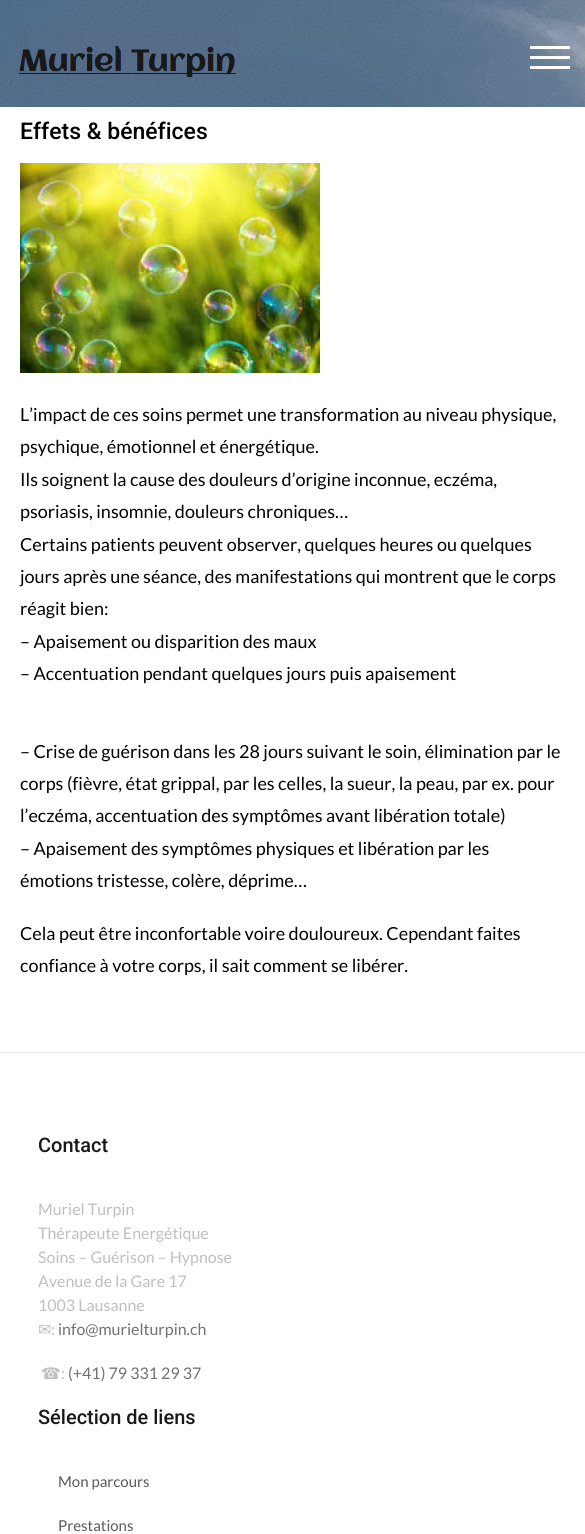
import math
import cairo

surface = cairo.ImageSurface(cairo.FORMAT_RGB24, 585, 1534)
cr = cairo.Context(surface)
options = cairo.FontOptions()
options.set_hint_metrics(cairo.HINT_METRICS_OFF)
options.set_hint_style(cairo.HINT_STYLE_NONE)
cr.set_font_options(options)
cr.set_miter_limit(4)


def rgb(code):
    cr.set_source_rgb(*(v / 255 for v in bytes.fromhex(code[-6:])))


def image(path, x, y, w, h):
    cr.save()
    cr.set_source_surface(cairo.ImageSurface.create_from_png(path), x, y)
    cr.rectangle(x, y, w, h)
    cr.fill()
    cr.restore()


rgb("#ffffff")
cr.paint()
image("img/1.png", 0, 0, 585, 107)
image("img/2.png", 15, 30, 225, 47)
for x, y, w, h, color in [
    (530, 56, 40, 3, "#ffffff"),
    (530, 46, 40, 3, "#ffffff"),
    (530, 66, 40, 3, "#ffffff"),
]:
    rgb(color)
    cr.rectangle(x, y, w, h)
    cr.fill()
image("img/3.png", 20, 163, 300, 210)
rgb("#ebebeb")
cr.rectangle(0, 1052, 585, 1)
cr.fill()
cr.select_font_face("Roboto Medium")
cr.set_font_size(23)
rgb("#000000")
cr.move_to(20, 139)
cr.show_text("Effets & bénéfices")
cr.select_font_face("Lato")
cr.set_font_size(18)
for x, y, s in [
    (20, 421, "L’impact de ces soins permet une transformation au niveau physique,"),
    (20, 453, "psychique, émotionnel et énergétique."),
    (20, 486, "Ils soignent la cause des douleurs d’origine inconnue, eczéma,"),
    (20, 518, "psoriasis, insomnie, douleurs chroniques…"),
    (20, 551, "Certains patients peuvent observer, quelques heures ou quelques"),
    (20, 583, "jours après une séance, des manifestations qui montrent que le corps"),
    (20, 615, "réagit bien:"),
    (20, 648, "– Apaisement ou disparition des maux"),
    (20, 680, "– Accentuation pendant quelques jours puis apaisement"),
    (20, 758, "– Crise de guérison dans les 28 jours suivant le soin, élimination par le"),
    (20, 790, "corps (fièvre, état grippal, par les celles, la sueur, la peau, par ex. pour"),
    (20, 822, "l’eczéma, accentuation des symptômes avant libération totale)"),
    (20, 855, "– Apaisement des symptômes physiques et libération par les"),
    (20, 887, "émotions tristesse, colère, déprime…"),
    (20, 940, "Cela peut être inconfortable voire douloureux. Cependant faites"),
    (20, 972, "confiance à votre corps, il sait comment se libérer."),
]:
    cr.move_to(x, y)
    cr.show_text(s)
cr.select_font_face("Roboto Medium")
cr.set_font_size(20)
rgb("#191919")
cr.move_to(38, 1152)
cr.show_text("Contact")
cr.select_font_face("Lato")
cr.set_font_size(16)
rgb("#bfbfbf")
for x, y, s in [
    (38, 1215, "Muriel Turpin"),
    (38, 1239, "Thérapeute Energétique"),
    (38, 1263, "Soins – Guérison – Hypnose"),
    (38, 1287, "Avenue de la Gare 17"),
    (38, 1311, "1003 Lausanne"),
]:
    cr.move_to(x, y)
    cr.show_text(s)
cr.select_font_face("DejaVu Sans")
cr.move_to(38, 1335)
cr.show_text("✉")
cr.select_font_face("Lato")
cr.move_to(51, 1335)
cr.show_text(":")
rgb("#707070")
cr.move_to(58, 1335)
cr.show_text("info@murielturpin.ch")
cr.select_font_face("DejaVu Sans")
rgb("#bfbfbf")
cr.move_to(41, 1379)
cr.show_text("☎")
cr.select_font_face("Lato")
cr.move_to(61, 1379)
cr.show_text(":")
rgb("#707070")
cr.move_to(68, 1379)
cr.show_text("(+41) 79 331 29 37")
cr.select_font_face("Roboto Medium")
cr.set_font_size(20)
rgb("#191919")
cr.move_to(38, 1424)
cr.show_text("Sélection de liens")
cr.select_font_face("Lato")
cr.set_font_size(15)
rgb("#595959")
cr.move_to(58, 1487)
cr.show_text("Mon parcours")
cr.move_to(58, 1531)
cr.show_text("Prestations")
surface.write_to_png("page.png")
